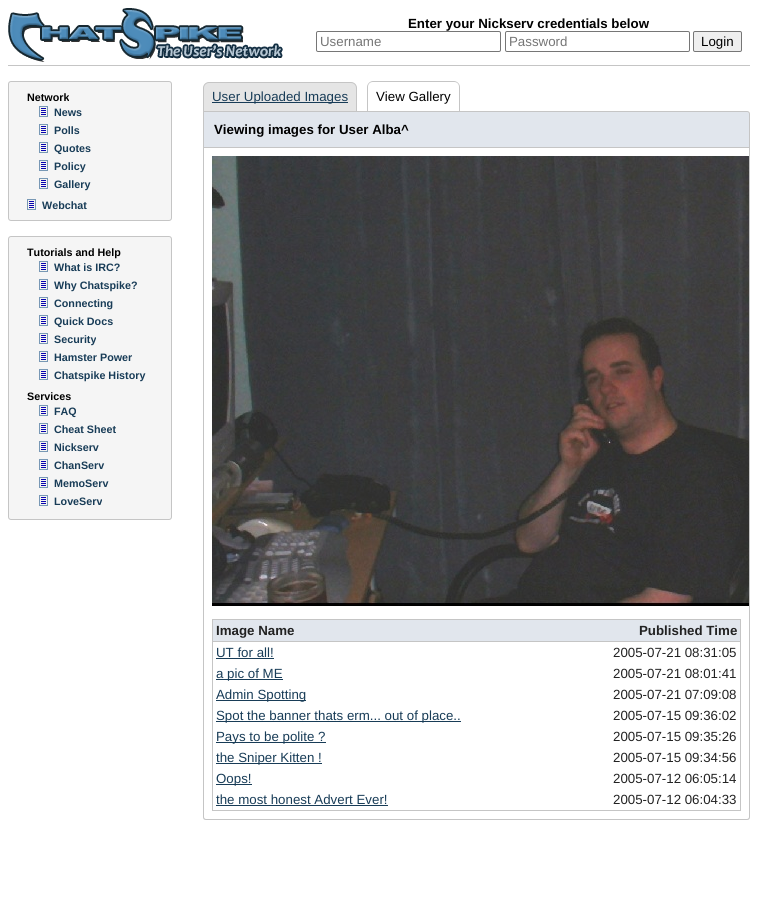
import math
import cairo

surface = cairo.ImageSurface(cairo.FORMAT_RGB24, 758, 908)
cr = cairo.Context(surface)
options = cairo.FontOptions()
options.set_hint_metrics(cairo.HINT_METRICS_OFF)
options.set_hint_style(cairo.HINT_STYLE_NONE)
cr.set_font_options(options)
cr.set_miter_limit(4)


def rgb(code):
    cr.set_source_rgb(*(v / 255 for v in bytes.fromhex(code[-6:])))


def rrect(x, y, w, h, r):
    cr.new_sub_path()
    for i, (u, v) in enumerate([(x + w - r, y + h - r), (x + r, y + h - r), (x + r, y + r), (x + w - r, y + r)]):
        cr.arc(u, v, r, i * math.pi / 2, (i + 1) * math.pi / 2)
    cr.close_path()


def image(path, x, y, w, h):
    cr.save()
    cr.set_source_surface(cairo.ImageSurface.create_from_png(path), x, y)
    cr.rectangle(x, y, w, h)
    cr.fill()
    cr.restore()


rgb("#ffffff")
cr.paint()
rgb("#c5c5c5")
cr.rectangle(8, 65, 742, 1)
cr.fill()
image("img/1.png", 8, 8, 275, 54)
rrect(316.5, 31.5, 184, 20, 1.5)
rgb("#767676")
cr.set_line_width(1)
cr.stroke()
rrect(505.5, 31.5, 184, 20, 1.5)
cr.stroke()
rgb("#efefef")
rrect(693.5, 31.5, 48, 20, 1.5)
cr.fill_preserve()
rgb("#767676")
cr.stroke()
rgb("#f5f5f5")
rrect(8.5, 81.5, 163, 139, 2.5)
cr.fill_preserve()
rgb("#c5c5c5")
cr.stroke()
image("img/2.png", 39, 106, 9, 11)
image("img/2.png", 39, 124, 9, 11)
image("img/2.png", 39, 142, 9, 11)
image("img/2.png", 39, 160, 9, 11)
image("img/2.png", 39, 178, 9, 11)
image("img/2.png", 27, 199, 9, 11)
rgb("#f5f5f5")
rrect(8.5, 236.5, 163, 283, 2.5)
cr.fill_preserve()
rgb("#c5c5c5")
cr.stroke()
image("img/2.png", 39, 261, 9, 11)
image("img/2.png", 39, 279, 9, 11)
image("img/2.png", 39, 297, 9, 11)
image("img/2.png", 39, 315, 9, 11)
image("img/2.png", 39, 333, 9, 11)
image("img/2.png", 39, 351, 9, 11)
image("img/2.png", 39, 369, 9, 11)
image("img/2.png", 39, 405, 9, 11)
image("img/2.png", 39, 423, 9, 11)
image("img/2.png", 39, 441, 9, 11)
image("img/2.png", 39, 459, 9, 11)
image("img/2.png", 39, 477, 9, 11)
image("img/2.png", 39, 495, 9, 11)
rgb("#e5e5e5")
cr.new_path()
cr.move_to(209, 82.5)
cr.line_to(351, 82.5)
cr.curve_to(354, 82.5, 356.5, 85, 356.5, 88)
cr.line_to(356.5, 111.5)
cr.line_to(203.5, 111.5)
cr.line_to(203.5, 88)
cr.curve_to(203.5, 85, 206, 82.5, 209, 82.5)
cr.close_path()
cr.fill_preserve()
rgb("#c5c5c5")
cr.stroke()
rgb("#183c57")
cr.rectangle(212, 102, 136, 1)
cr.fill()
rgb("#c5c5c5")
cr.set_fill_rule(cairo.FILL_RULE_EVEN_ODD)
cr.new_path()
cr.move_to(373, 81)
cr.line_to(454, 81)
cr.curve_to(457, 81, 460, 84, 460, 87)
cr.line_to(460, 112)
cr.line_to(367, 112)
cr.line_to(367, 87)
cr.curve_to(367, 84, 370, 81, 373, 81)
cr.close_path()
cr.move_to(373, 82)
cr.line_to(454, 82)
cr.curve_to(457, 82, 459, 84, 459, 87)
cr.line_to(459, 112)
cr.line_to(368, 112)
cr.line_to(368, 87)
cr.curve_to(368, 84, 370, 82, 373, 82)
cr.close_path()
cr.fill()
rgb("#e1e6ed")
cr.new_path()
cr.move_to(203.5, 111.5)
cr.line_to(747, 111.5)
cr.curve_to(748.5, 111.5, 749.5, 112.5, 749.5, 114)
cr.line_to(749.5, 147.5)
cr.line_to(203.5, 147.5)
cr.close_path()
cr.fill_preserve()
rgb("#c5c5c5")
cr.stroke()
cr.new_path()
cr.move_to(203, 148)
cr.line_to(750, 148)
cr.line_to(750, 817)
cr.curve_to(750, 819, 749, 820, 747, 820)
cr.line_to(206, 820)
cr.curve_to(204, 820, 203, 819, 203, 817)
cr.close_path()
cr.move_to(204, 148)
cr.line_to(749, 148)
cr.line_to(749, 817)
cr.curve_to(749, 818, 748, 819, 747, 819)
cr.line_to(206, 819)
cr.curve_to(205, 819, 204, 818, 204, 817)
cr.close_path()
cr.fill()
image("img/3.png", 212, 156, 537, 450)
cr.rectangle(212.5, 619.5, 528, 191)
cr.stroke()
for x, y, w, h, color in [
    (213, 620, 527, 21, "#e1e6ed"),
    (213, 641, 527, 1, "#c5c5c5"),
    (216, 658, 58, 1, "#183c57"),
    (216, 679, 67, 1, "#183c57"),
    (216, 700, 90, 1, "#183c57"),
    (216, 721, 245, 1, "#183c57"),
    (216, 742, 110, 1, "#183c57"),
    (216, 763, 106, 1, "#183c57"),
    (216, 784, 36, 1, "#183c57"),
    (216, 805, 172, 1, "#183c57"),
]:
    rgb(color)
    cr.rectangle(x, y, w, h)
    cr.fill()
cr.select_font_face("Liberation Sans", cairo.FONT_SLANT_NORMAL, cairo.FONT_WEIGHT_BOLD)
cr.set_font_size(13.3)
rgb("#000000")
cr.move_to(408, 28)
cr.show_text("Enter your Nickserv credentials below")
cr.select_font_face("Liberation Sans")
rgb("#757575")
cr.move_to(320, 46)
cr.show_text("Username")
cr.move_to(509, 46)
cr.show_text("Password")
rgb("#000000")
cr.move_to(701, 46)
cr.show_text("Login")
cr.select_font_face("Liberation Sans", cairo.FONT_SLANT_NORMAL, cairo.FONT_WEIGHT_BOLD)
cr.set_font_size(10.75)
cr.move_to(27, 101)
cr.show_text("Network")
rgb("#183c57")
for x, y, s in [
    (54, 116, "News"),
    (54, 134, "Polls"),
    (54, 152, "Quotes"),
    (54, 170, "Policy"),
    (54, 188, "Gallery"),
    (42, 209, "Webchat"),
]:
    cr.move_to(x, y)
    cr.show_text(s)
rgb("#000000")
cr.move_to(27, 256)
cr.show_text("Tutorials and Help")
rgb("#183c57")
for x, y, s in [
    (54, 271, "What is IRC?"),
    (54, 289, "Why Chatspike?"),
    (54, 307, "Connecting"),
    (54, 325, "Quick Docs"),
    (54, 343, "Security"),
    (54, 361, "Hamster Power"),
    (54, 379, "Chatspike History"),
]:
    cr.move_to(x, y)
    cr.show_text(s)
rgb("#000000")
cr.move_to(27, 400)
cr.show_text("Services")
rgb("#183c57")
for x, y, s in [
    (54, 415, "FAQ"),
    (54, 433, "Cheat Sheet"),
    (54, 451, "Nickserv"),
    (54, 469, "ChanServ"),
    (54, 487, "MemoServ"),
    (54, 505, "LoveServ"),
]:
    cr.move_to(x, y)
    cr.show_text(s)
cr.select_font_face("Liberation Sans")
cr.set_font_size(13.3)
cr.move_to(212, 101)
cr.show_text("User Uploaded Images")
rgb("#000000")
cr.move_to(376, 101)
cr.show_text("View Gallery")
cr.select_font_face("Liberation Sans", cairo.FONT_SLANT_NORMAL, cairo.FONT_WEIGHT_BOLD)
cr.move_to(214, 134)
cr.show_text("Viewing images for User Alba^")
rgb("#222222")
cr.move_to(216, 635)
cr.show_text("Image Name")
cr.move_to(639, 635)
cr.show_text("Published Time")
cr.select_font_face("Liberation Sans")
rgb("#183c57")
cr.move_to(216, 657)
cr.show_text("UT for all!")
rgb("#222222")
cr.move_to(613, 657)
cr.show_text("2005-07-21 08:31:05")
rgb("#183c57")
cr.move_to(216, 678)
cr.show_text("a pic of ME")
rgb("#222222")
cr.move_to(613, 678)
cr.show_text("2005-07-21 08:01:41")
rgb("#183c57")
cr.move_to(216, 699)
cr.show_text("Admin Spotting")
rgb("#222222")
cr.move_to(613, 699)
cr.show_text("2005-07-21 07:09:08")
rgb("#183c57")
cr.move_to(216, 720)
cr.show_text("Spot the banner thats erm... out of place..")
rgb("#222222")
cr.move_to(613, 720)
cr.show_text("2005-07-15 09:36:02")
rgb("#183c57")
cr.move_to(216, 741)
cr.show_text("Pays to be polite ?")
rgb("#222222")
cr.move_to(613, 741)
cr.show_text("2005-07-15 09:35:26")
rgb("#183c57")
cr.move_to(216, 762)
cr.show_text("the Sniper Kitten !")
rgb("#222222")
cr.move_to(613, 762)
cr.show_text("2005-07-15 09:34:56")
rgb("#183c57")
cr.move_to(216, 783)
cr.show_text("Oops!")
rgb("#222222")
cr.move_to(613, 783)
cr.show_text("2005-07-12 06:05:14")
rgb("#183c57")
cr.move_to(216, 804)
cr.show_text("the most honest Advert Ever!")
rgb("#222222")
cr.move_to(613, 804)
cr.show_text("2005-07-12 06:04:33")
surface.write_to_png("page.png")
